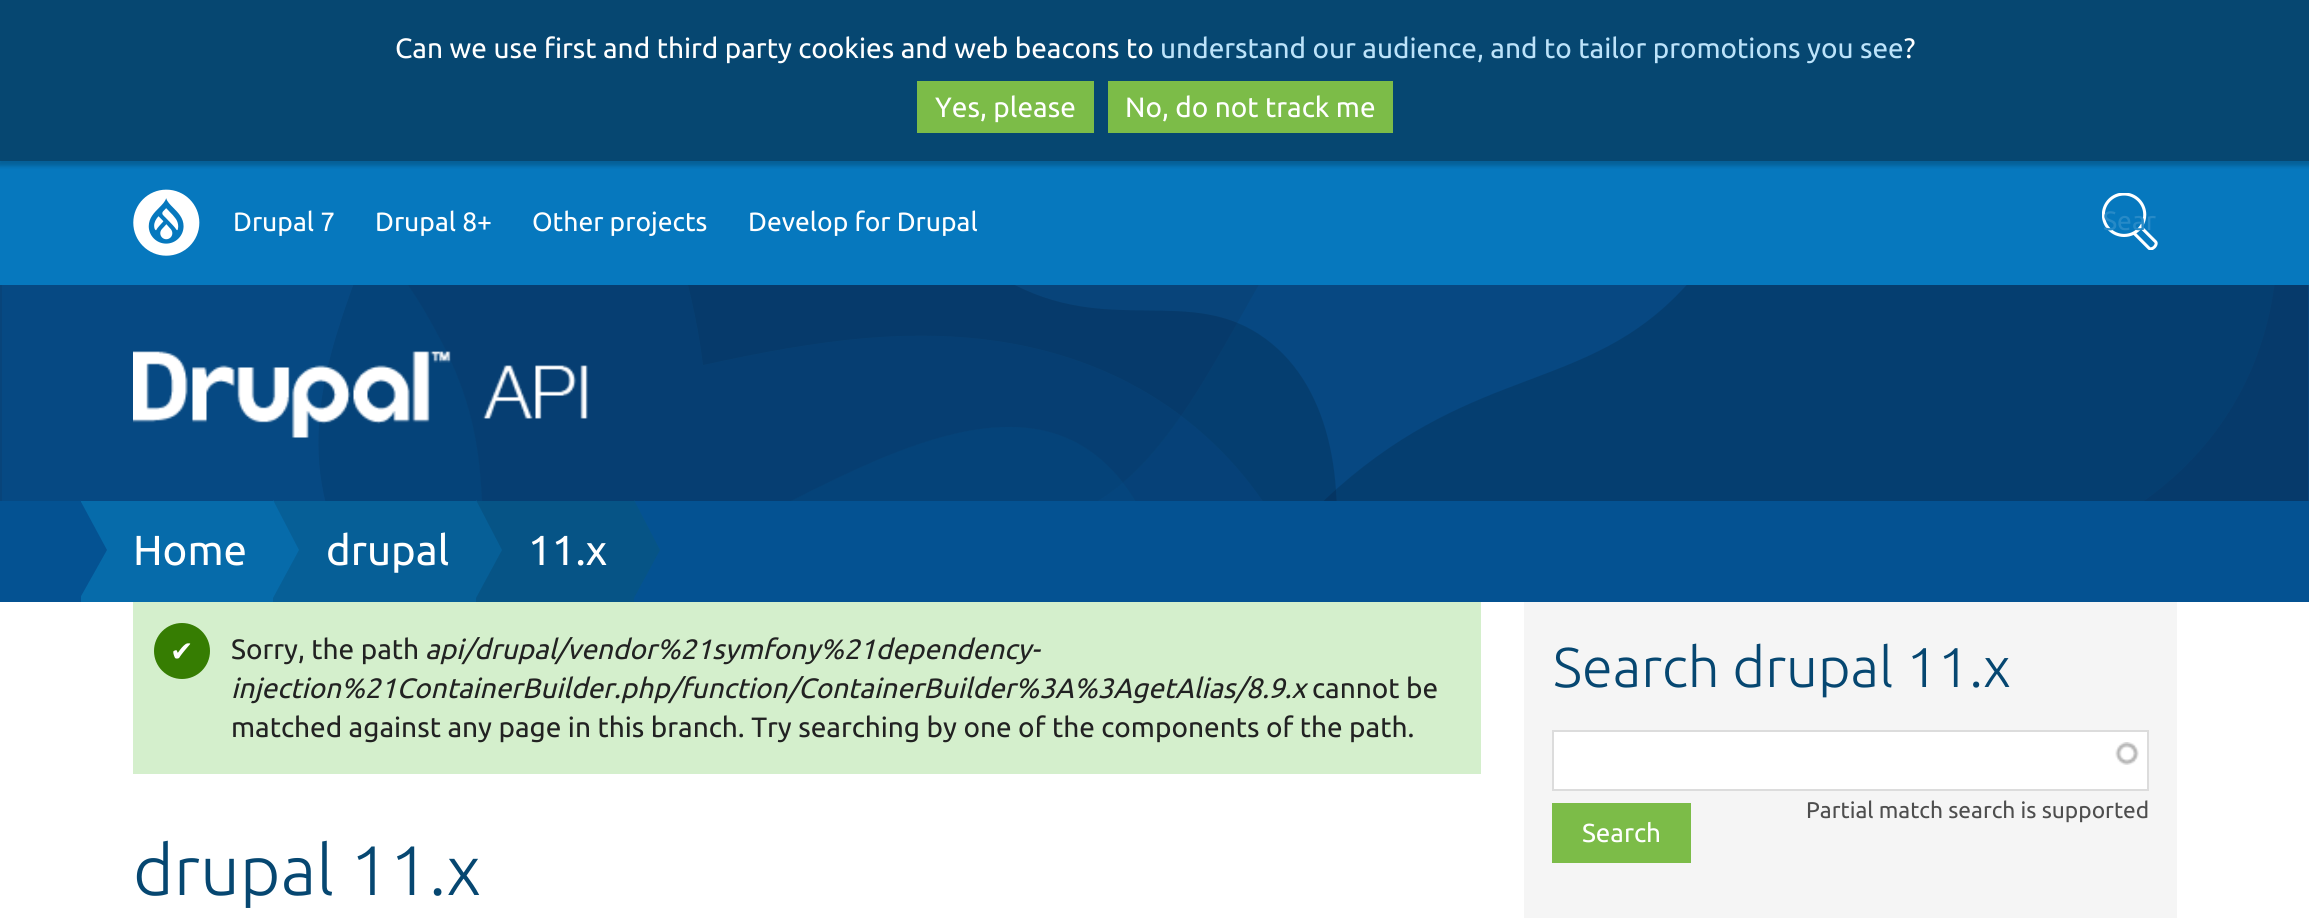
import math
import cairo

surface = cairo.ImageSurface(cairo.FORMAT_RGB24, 2309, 918)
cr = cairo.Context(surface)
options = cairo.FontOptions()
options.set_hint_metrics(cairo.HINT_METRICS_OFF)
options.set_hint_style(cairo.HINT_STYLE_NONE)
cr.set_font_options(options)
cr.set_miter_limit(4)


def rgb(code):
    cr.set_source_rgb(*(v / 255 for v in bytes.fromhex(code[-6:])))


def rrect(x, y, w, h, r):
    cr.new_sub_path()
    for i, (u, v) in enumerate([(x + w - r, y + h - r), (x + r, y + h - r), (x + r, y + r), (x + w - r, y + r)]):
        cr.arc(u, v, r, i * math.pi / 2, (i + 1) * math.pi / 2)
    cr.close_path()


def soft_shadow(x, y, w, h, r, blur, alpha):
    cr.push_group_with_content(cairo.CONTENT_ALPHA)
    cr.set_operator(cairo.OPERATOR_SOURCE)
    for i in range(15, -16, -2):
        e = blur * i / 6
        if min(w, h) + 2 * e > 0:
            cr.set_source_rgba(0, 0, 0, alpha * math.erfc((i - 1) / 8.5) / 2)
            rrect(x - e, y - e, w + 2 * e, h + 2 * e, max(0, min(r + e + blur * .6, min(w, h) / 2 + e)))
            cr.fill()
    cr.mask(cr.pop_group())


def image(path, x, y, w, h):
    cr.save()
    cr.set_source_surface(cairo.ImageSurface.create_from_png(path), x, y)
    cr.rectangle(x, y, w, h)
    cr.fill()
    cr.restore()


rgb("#ffffff")
cr.paint()
rgb("#0678be")
cr.rectangle(0, 161, 2309, 124)
cr.fill()
rgb("#000000")
soft_shadow(-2, 2, 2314, 164, 0, 2, 0.2)
for x, y, w, h, color in [
    (0, 0, 2309, 161, "#064771"),
    (917, 81, 177, 52, "#7cbc48"),
    (1108, 81, 285, 52, "#7cbc48"),
]:
    rgb(color)
    cr.rectangle(x, y, w, h)
    cr.fill()
image("img/1.png", 133, 189, 67, 67)
image("img/2.png", 2102, 193, 56, 57)
rgb("#08447a")
cr.rectangle(0, 285, 2309, 216)
cr.fill()
image("img/3.png", 2, 285, 2306, 216)
image("img/4.png", 133, 351, 455, 87)
rgb("#045292")
cr.rectangle(0, 501, 2309, 101)
cr.fill()
rgb("#066baa")
cr.rectangle(81, 501, 192, 101)
cr.fill()
rgb("#045292")
cr.new_path()
cr.move_to(80, 598)
cr.line_to(80, 500)
cr.line_to(107, 550)
cr.close_path()
cr.fill()
rgb("#065f97")
cr.rectangle(273, 501, 203, 101)
cr.fill()
rgb("#066baa")
cr.new_path()
cr.move_to(273, 598)
cr.line_to(273, 500)
cr.line_to(299, 550)
cr.close_path()
cr.fill()
rgb("#065486")
cr.rectangle(476, 501, 158, 101)
cr.fill()
rgb("#065f97")
cr.new_path()
cr.move_to(476, 598)
cr.line_to(476, 500)
cr.line_to(502, 550)
cr.close_path()
cr.fill()
rgb("#065486")
cr.new_path()
cr.move_to(634, 598)
cr.line_to(634, 500)
cr.line_to(660, 550)
cr.close_path()
cr.fill()
rgb("#d4efcc")
cr.rectangle(133, 602, 1348, 172)
cr.fill()
rgb("#367d02")
cr.arc(182, 651, 28, 0, 2 * math.pi)
cr.fill()
rgb("#f5f5f5")
cr.rectangle(1524, 602, 653, 316)
cr.fill()
rgb("#ffffff")
cr.rectangle(1554, 732, 593, 57)
cr.fill()
image("img/5.png", 2115, 742, 24, 23)
cr.rectangle(1553, 731, 595, 59)
rgb("#dcdcdc")
cr.stroke()
rgb("#7cbc48")
cr.rectangle(1552, 803, 139, 60)
cr.fill()
cr.select_font_face("Ubuntu")
cr.set_font_size(28)
rgb("#ffffff")
cr.move_to(395, 58)
cr.show_text("Can we use first and third party cookies and web beacons to")
rgb("#bce3fa")
cr.move_to(1160, 58)
cr.show_text("understand our audience, and to tailor promotions you see")
rgb("#ffffff")
for x, y, s in [
    (1904, 58, "?"),
    (935, 117, "Yes, please"),
    (1125, 117, "No, do not track me"),
]:
    cr.move_to(x, y)
    cr.show_text(s)
cr.set_font_size(26.5)
for x, y, s in [
    (233, 231, "Drupal 7"),
    (375, 231, "Drupal 8+"),
    (532, 231, "Other projects"),
    (748, 231, "Develop for Drupal"),
]:
    cr.move_to(x, y)
    cr.show_text(s)
rgb("#278ac7")
cr.move_to(2103, 230)
cr.show_text("Sear")
cr.set_font_size(42)
rgb("#ffffff")
for x, y, s in [
    (133, 565, "Home"),
    (326, 565, "drupal"),
    (528, 565, "11.x"),
]:
    cr.move_to(x, y)
    cr.show_text(s)
cr.select_font_face("DejaVu Sans")
cr.set_font_size(28)
cr.move_to(170, 661)
cr.show_text("✔")
cr.select_font_face("Ubuntu")
rgb("#222222")
cr.move_to(231, 659)
cr.show_text("Sorry, the path")
cr.select_font_face("Ubuntu", cairo.FONT_SLANT_ITALIC)
cr.move_to(425, 659)
cr.show_text("api/drupal/vendor%21symfony%21dependency-")
cr.move_to(231, 698)
cr.show_text("injection%21ContainerBuilder.php/function/ContainerBuilder%3A%3AgetAlias/8.9.x")
cr.select_font_face("Ubuntu")
cr.move_to(1312, 698)
cr.show_text("cannot be")
cr.move_to(231, 737)
cr.show_text("matched against any page in this branch. Try searching by one of the components of the path.")
cr.select_font_face("Ubuntu Light")
cr.set_font_size(70)
rgb("#064771")
cr.move_to(133, 895)
cr.show_text("drupal 11.x")
cr.set_font_size(56)
cr.move_to(1553, 687)
cr.show_text("Search drupal 11.x")
cr.select_font_face("Ubuntu")
cr.set_font_size(22.75)
rgb("#4e4e4e")
cr.move_to(1806, 818)
cr.show_text("Partial match search is supported")
cr.set_font_size(26)
rgb("#ffffff")
cr.move_to(1582, 842)
cr.show_text("Search")
surface.write_to_png("page.png")
